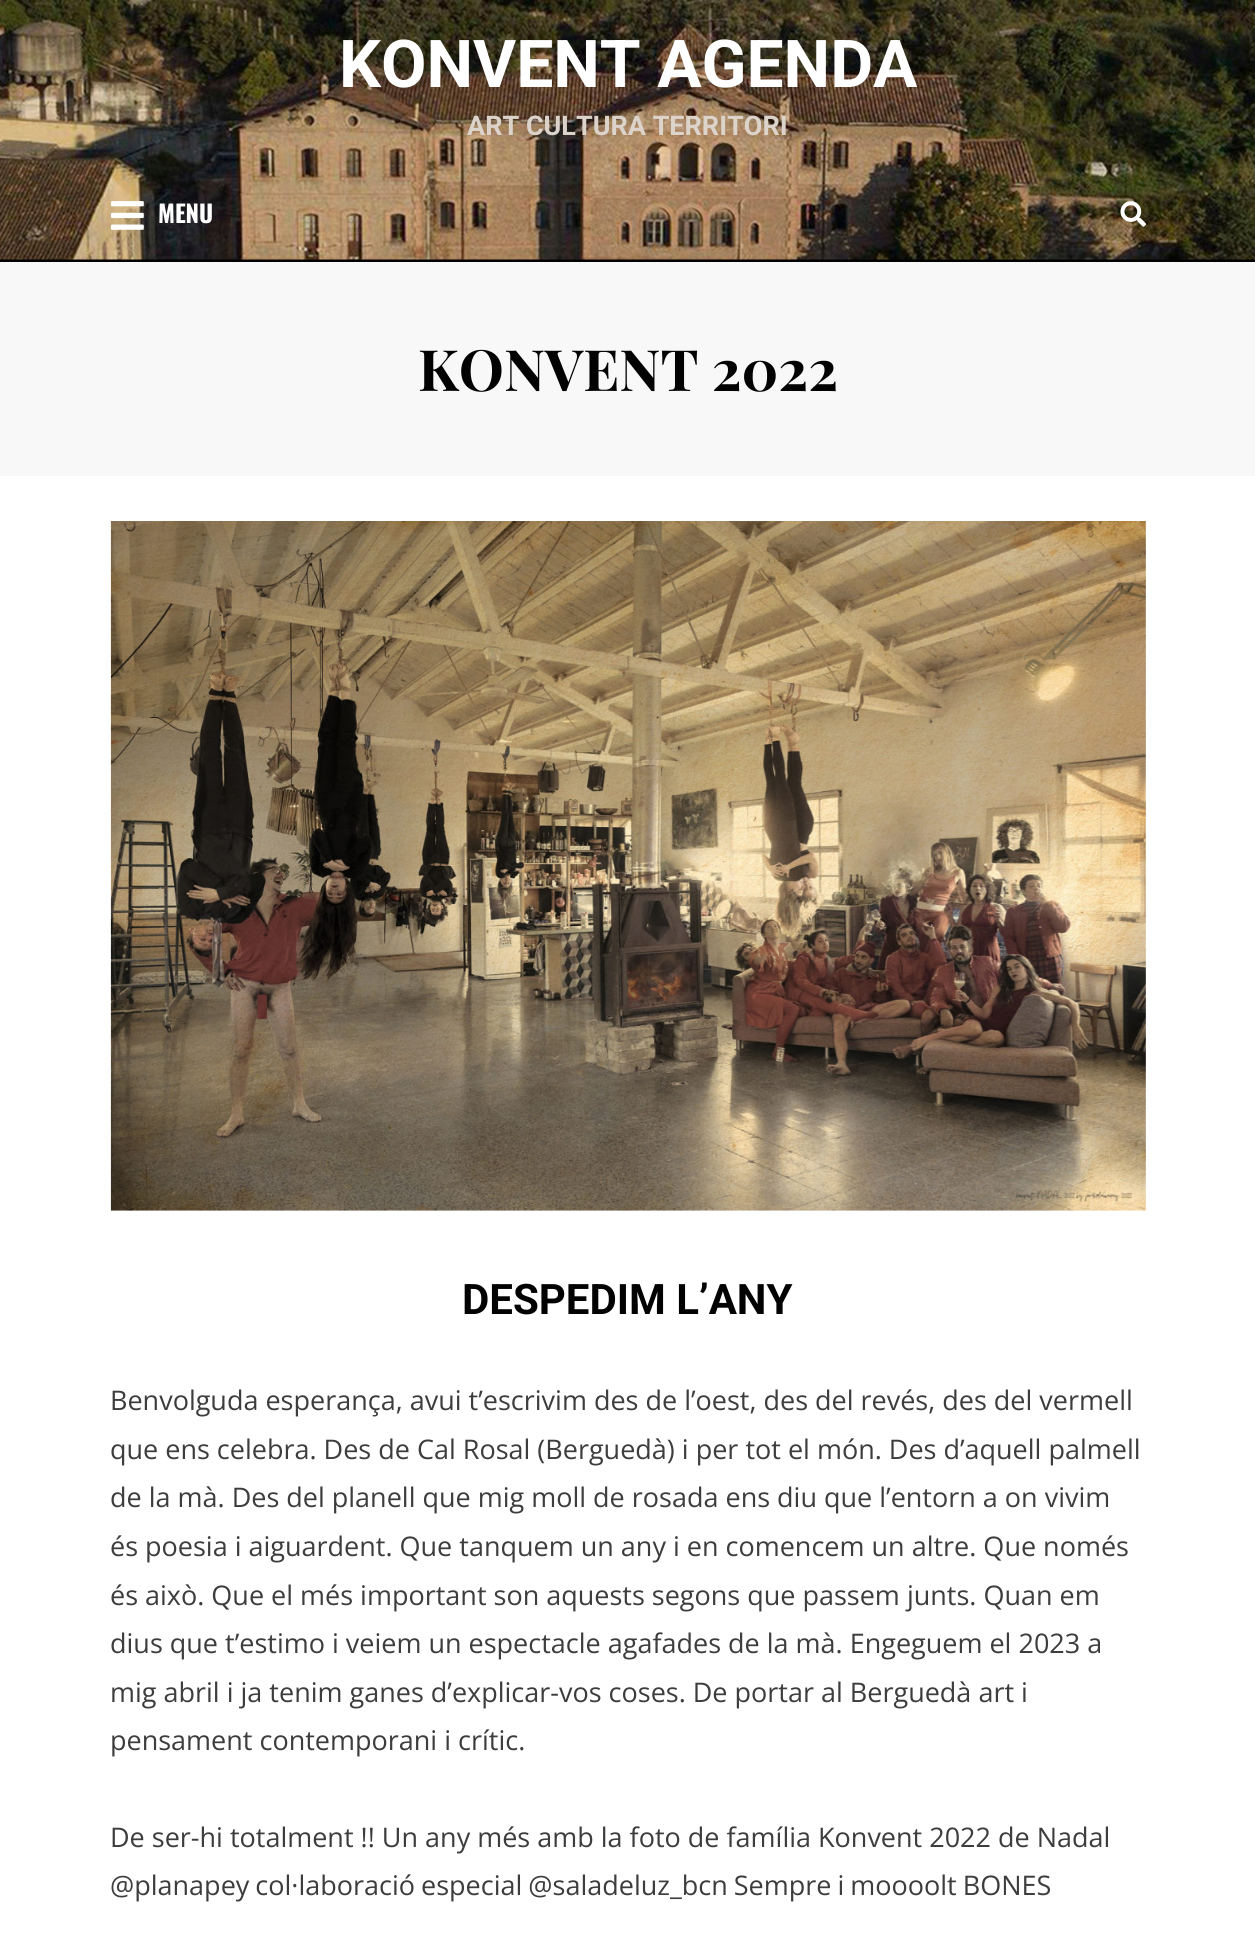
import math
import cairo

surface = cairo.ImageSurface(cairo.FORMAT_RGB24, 1255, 1938)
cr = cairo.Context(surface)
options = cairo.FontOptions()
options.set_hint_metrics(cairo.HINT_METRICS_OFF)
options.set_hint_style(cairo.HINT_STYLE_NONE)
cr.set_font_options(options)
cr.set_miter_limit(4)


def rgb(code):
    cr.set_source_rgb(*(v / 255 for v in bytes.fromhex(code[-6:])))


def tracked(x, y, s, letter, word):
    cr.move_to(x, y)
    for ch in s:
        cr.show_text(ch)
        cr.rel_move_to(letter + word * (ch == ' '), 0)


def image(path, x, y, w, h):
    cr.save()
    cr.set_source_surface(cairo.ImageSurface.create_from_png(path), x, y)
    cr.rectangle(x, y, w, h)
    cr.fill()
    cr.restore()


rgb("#ffffff")
cr.paint()
rgb("#020202")
cr.rectangle(0, 259, 1255, 3)
cr.fill()
image("img/1.png", 0, 0, 1255, 260)
image("img/2.png", 111, 201, 33, 29)
image("img/3.png", 1120, 201, 26, 26)
rgb("#f8f8f8")
cr.rectangle(0, 262, 1255, 214)
cr.fill()
image("img/4.png", 110, 521, 1036, 690)
cr.select_font_face("Roboto", cairo.FONT_SLANT_NORMAL, cairo.FONT_WEIGHT_BOLD)
cr.set_font_size(66)
rgb("#ffffff")
cr.move_to(339, 87)
cr.show_text("KONVENT AGENDA")
cr.set_font_size(27)
rgb("#dcd4cb")
cr.move_to(467, 135)
cr.show_text("ART CULTURA TERRITORI")
cr.select_font_face("Oswald", cairo.FONT_SLANT_NORMAL, cairo.FONT_WEIGHT_BOLD)
cr.set_font_size(24)
rgb("#ffffff")
cr.move_to(158, 223)
cr.show_text("MENU")
cr.select_font_face("Playfair Display", cairo.FONT_SLANT_NORMAL, cairo.FONT_WEIGHT_BOLD)
cr.set_font_size(57)
rgb("#020202")
cr.move_to(418, 391)
cr.show_text("KONVENT 2022")
cr.select_font_face("Roboto", cairo.FONT_SLANT_NORMAL, cairo.FONT_WEIGHT_BOLD)
cr.set_font_size(42)
cr.move_to(462, 1314)
cr.show_text("DESPEDIM L’ANY")
cr.select_font_face("Open Sans")
cr.set_font_size(27)
rgb("#3d3d3d")
for x, y, s in [
    (110, 1410, "Benvolguda esperança, avui t’escrivim des de l’oest, des del revés, des del vermell"),
    (110, 1459, "que ens celebra. Des de Cal Rosal (Berguedà) i per tot el món. Des d’aquell palmell"),
    (110, 1507, "de la mà. Des del planell que mig moll de rosada ens diu que l’entorn a on vivim"),
    (110, 1556, "és poesia i aiguardent. Que tanquem un any i en comencem un altre. Que només"),
    (110, 1605, "és això. Que el més important son aquests segons que passem junts. Quan em"),
    (110, 1653, "dius que t’estimo i veiem un espectacle agafades de la mà. Engeguem el 2023 a"),
    (110, 1702, "mig abril i ja tenim ganes d’explicar-vos coses. De portar al Berguedà art i"),
    (110, 1750, "pensament contemporani i crític."),
    (110, 1847, "De ser-hi totalment !! Un any més amb la foto de família Konvent 2022 de Nadal"),
]:
    cr.move_to(x, y)
    cr.show_text(s)
tracked(110, 1895, "@planapey col·laboració especial @saladeluz_bcn Sempre i moooolt BONES", 0, -1)
surface.write_to_png("page.png")
